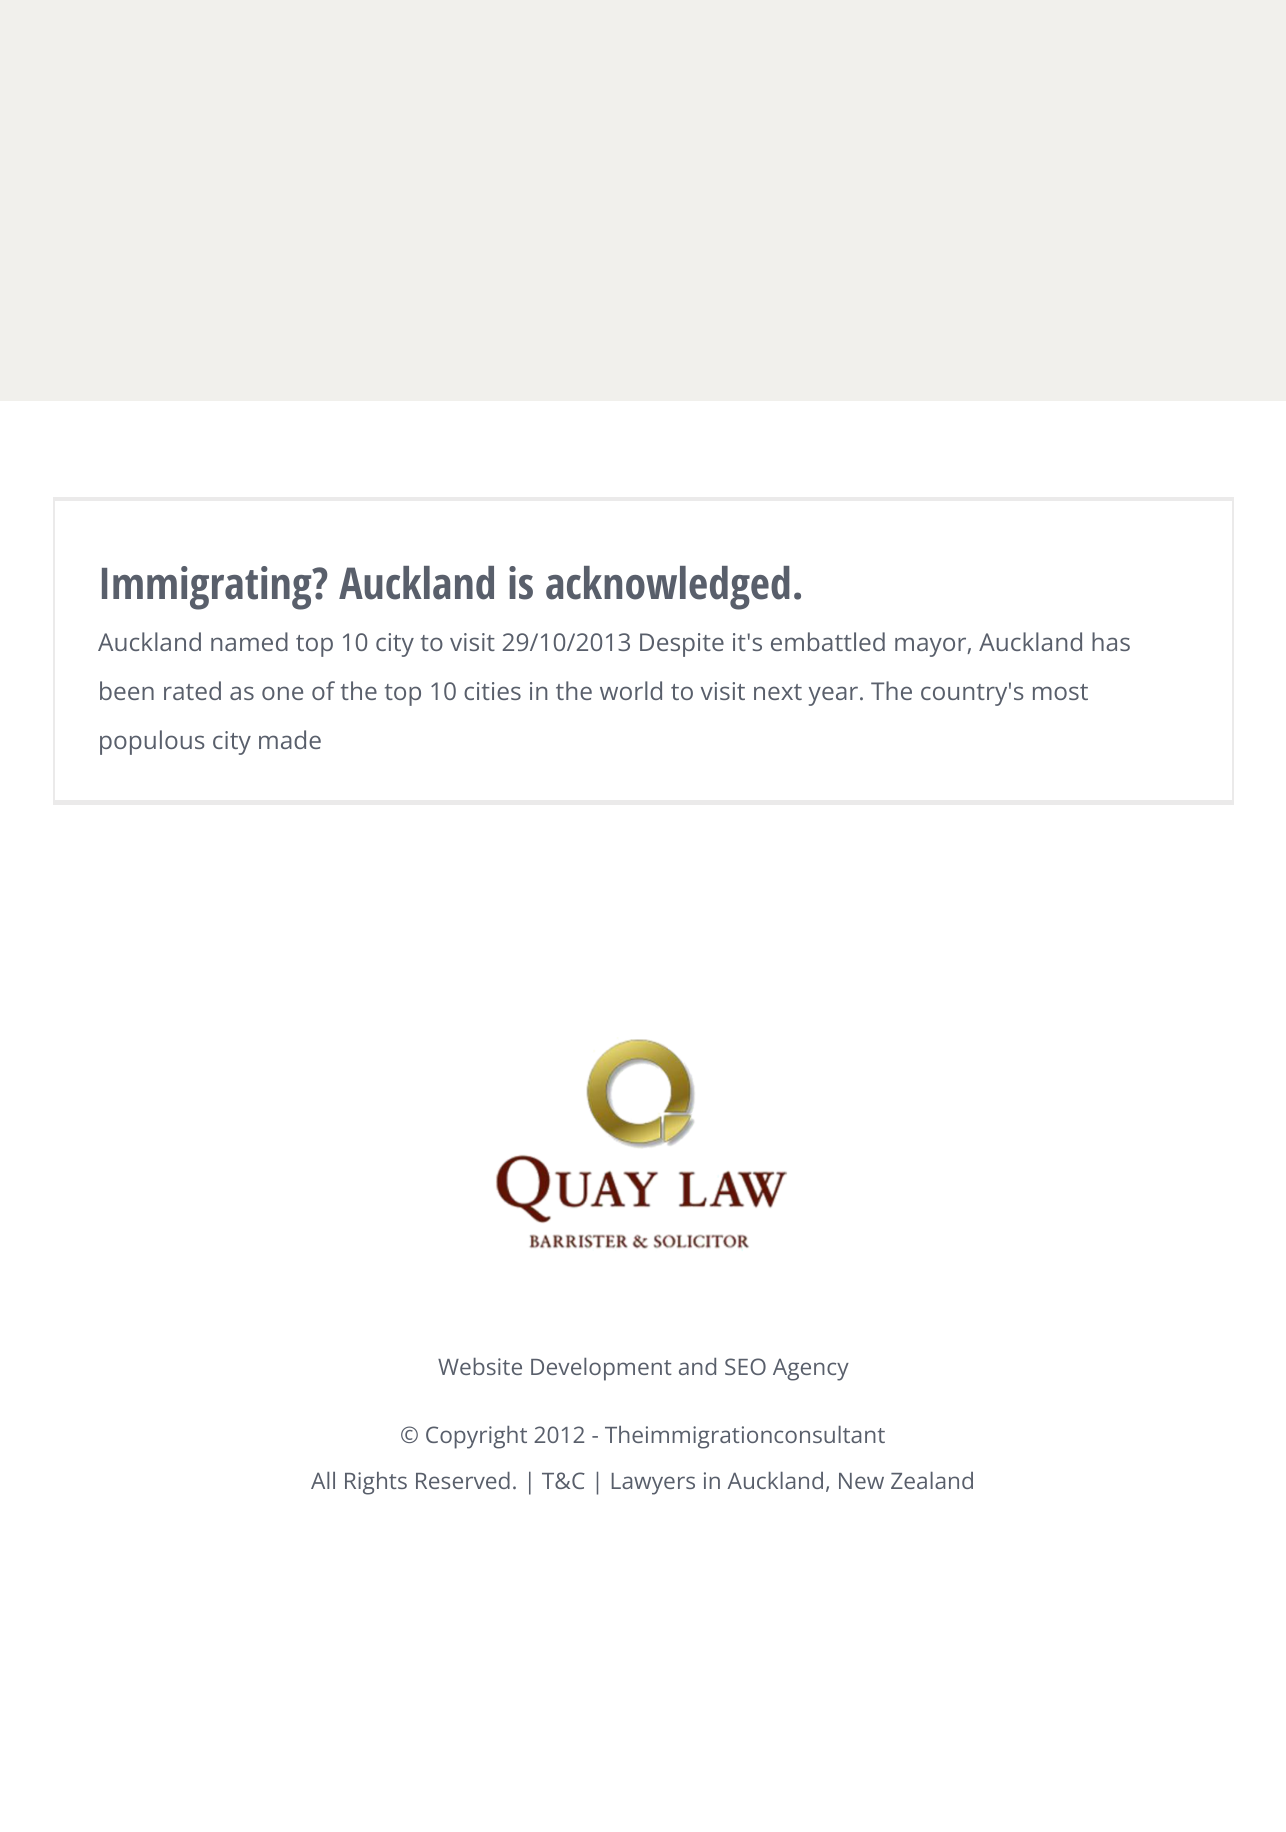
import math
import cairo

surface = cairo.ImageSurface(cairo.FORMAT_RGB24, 1286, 1832)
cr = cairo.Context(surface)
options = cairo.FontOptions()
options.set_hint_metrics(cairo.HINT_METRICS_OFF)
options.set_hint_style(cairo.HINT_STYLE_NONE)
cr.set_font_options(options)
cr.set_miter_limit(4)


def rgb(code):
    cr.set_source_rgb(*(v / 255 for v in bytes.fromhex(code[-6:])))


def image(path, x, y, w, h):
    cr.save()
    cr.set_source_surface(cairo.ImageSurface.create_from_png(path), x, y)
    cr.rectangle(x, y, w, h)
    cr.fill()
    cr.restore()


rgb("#ffffff")
cr.paint()
for x, y, w, h, color in [
    (0, 0, 1286, 401, "#f1f0ec"),
    (53, 497, 1181, 2, "#ebeaea"),
    (1232, 497, 2, 308, "#ebeaea"),
    (53, 800, 1181, 5, "#ebeaea"),
    (53, 497, 2, 308, "#ebeaea"),
    (54, 499, 1178, 2, "#ebeaea"),
]:
    rgb(color)
    cr.rectangle(x, y, w, h)
    cr.fill()
image("img/1.png", 495, 1037, 293, 215)
cr.select_font_face("Open Sans Condensed", cairo.FONT_SLANT_NORMAL, cairo.FONT_WEIGHT_BOLD)
cr.set_font_size(43.75)
rgb("#595f6b")
cr.move_to(98, 599)
cr.show_text("Immigrating? Auckland is acknowledged.")
cr.select_font_face("Open Sans")
cr.set_font_size(24.5)
for x, y, s in [
    (98, 651, "Auckland named top 10 city to visit 29/10/2013 Despite it's embattled mayor, Auckland has"),
    (98, 700, "been rated as one of the top 10 cities in the world to visit next year. The country's most"),
    (98, 749, "populous city made"),
]:
    cr.move_to(x, y)
    cr.show_text(s)
cr.set_font_size(22.75)
for x, y, s in [
    (438, 1375, "Website Development and SEO Agency"),
    (400, 1443, "© Copyright 2012 - Theimmigrationconsultant"),
    (311, 1489, "All Rights Reserved. | T&C | Lawyers in Auckland, New Zealand"),
]:
    cr.move_to(x, y)
    cr.show_text(s)
surface.write_to_png("page.png")
